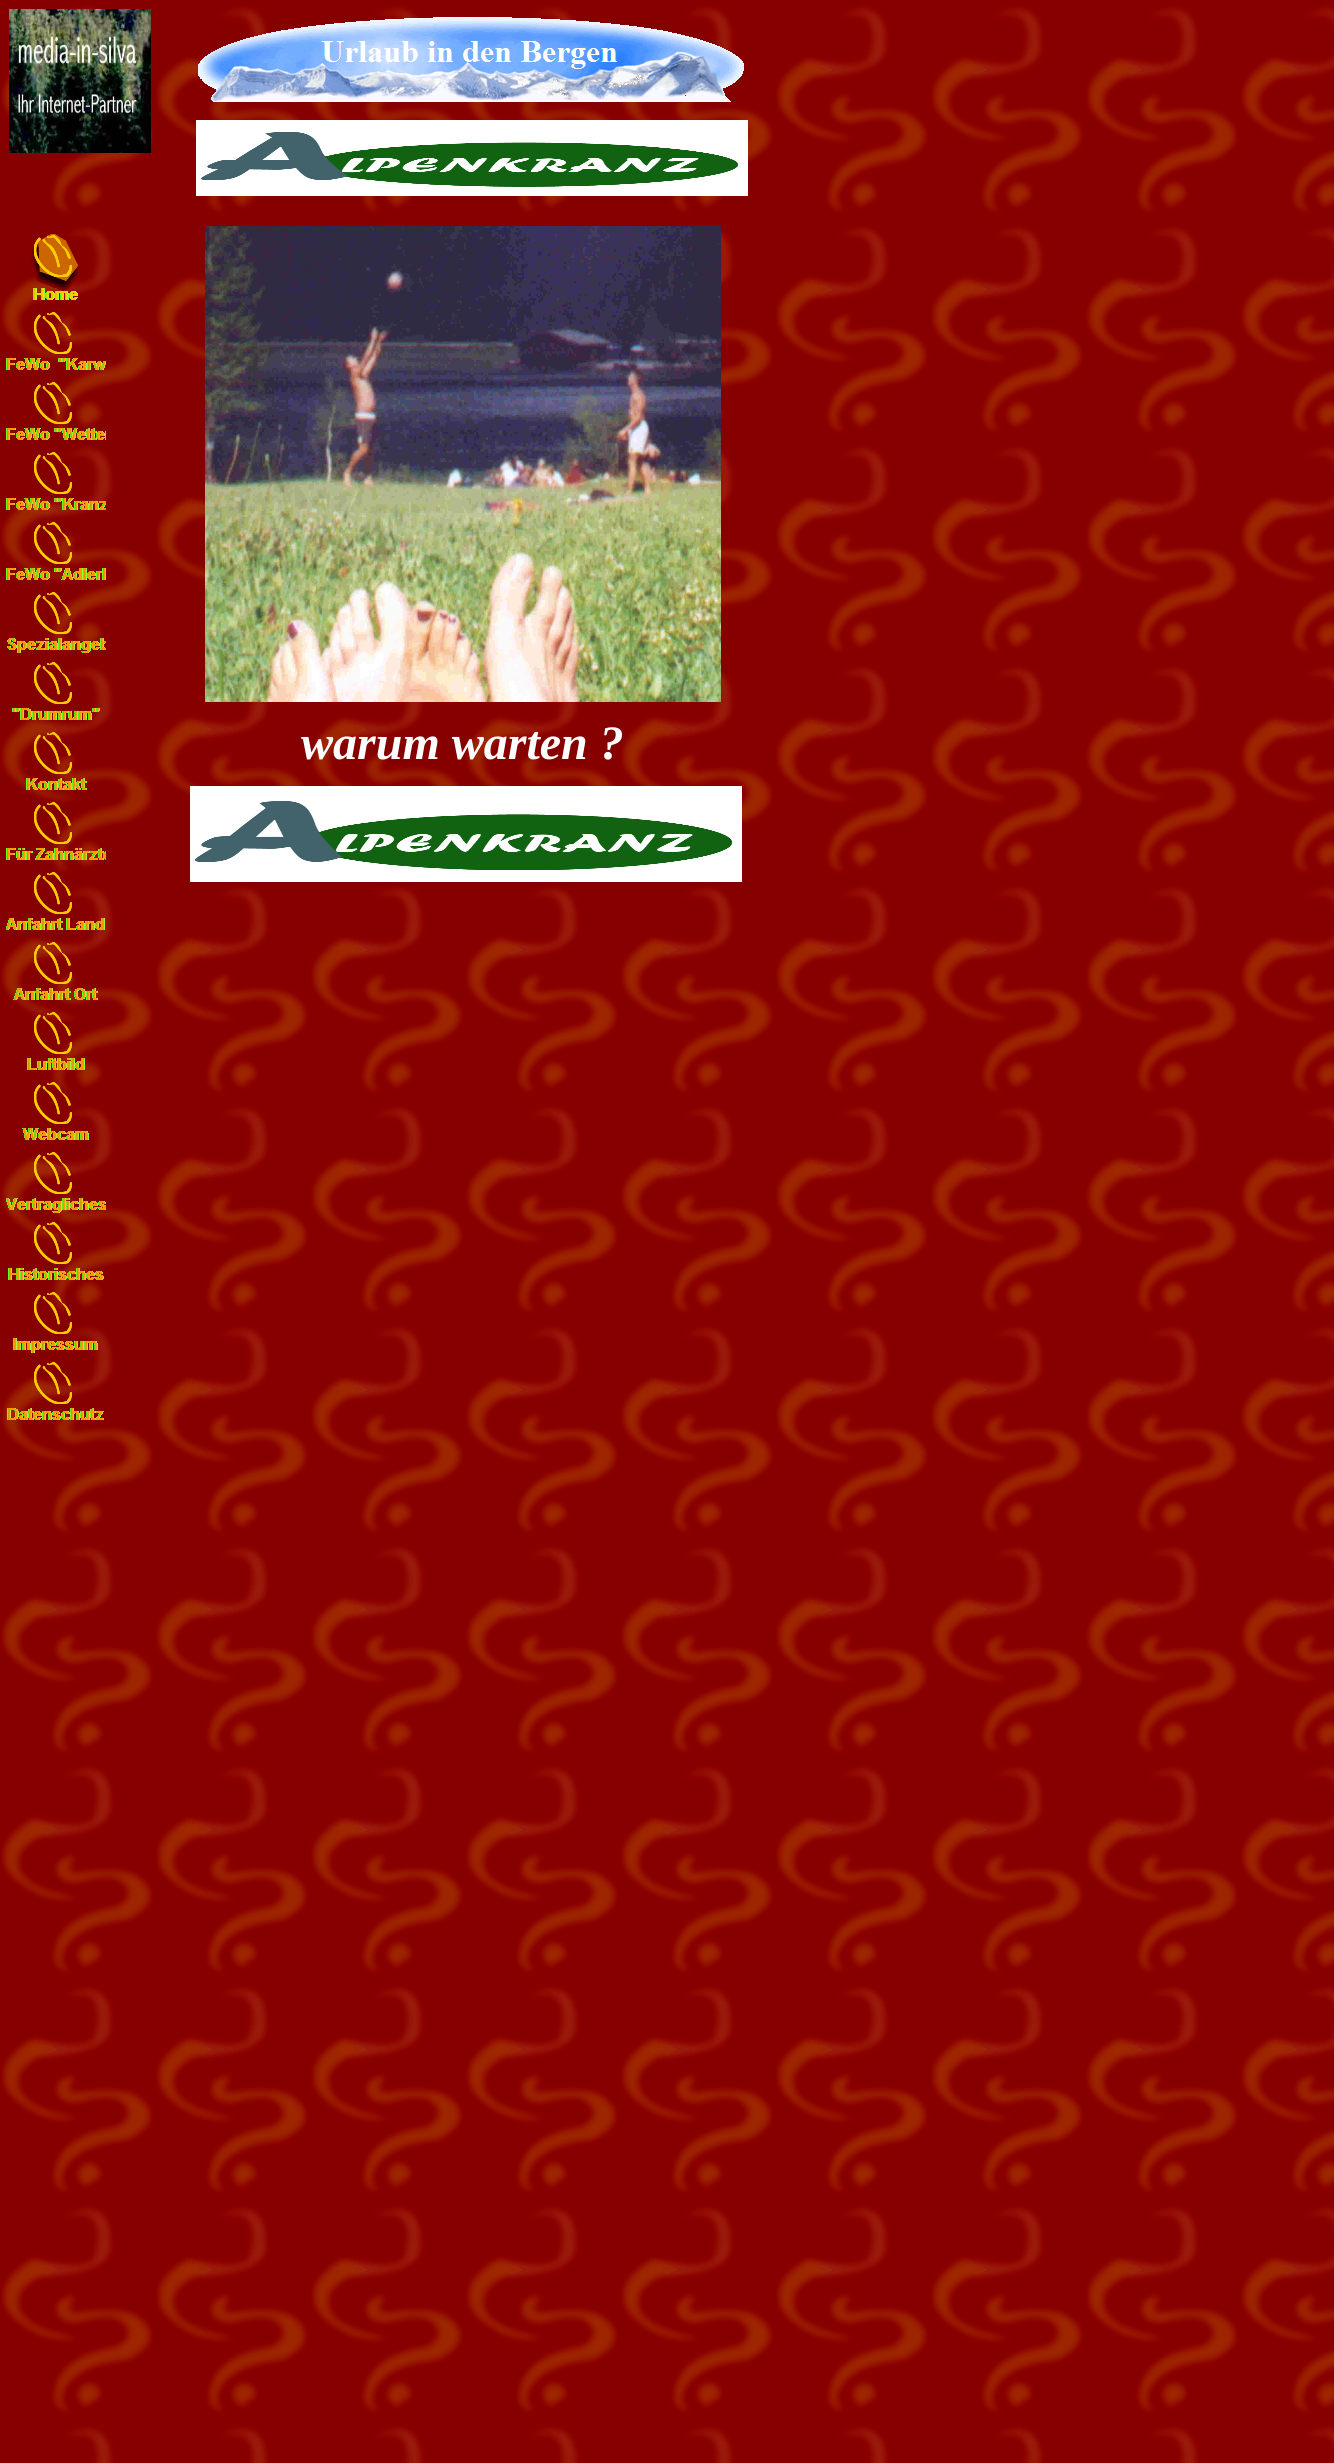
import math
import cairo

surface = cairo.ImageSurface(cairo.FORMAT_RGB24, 1334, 2463)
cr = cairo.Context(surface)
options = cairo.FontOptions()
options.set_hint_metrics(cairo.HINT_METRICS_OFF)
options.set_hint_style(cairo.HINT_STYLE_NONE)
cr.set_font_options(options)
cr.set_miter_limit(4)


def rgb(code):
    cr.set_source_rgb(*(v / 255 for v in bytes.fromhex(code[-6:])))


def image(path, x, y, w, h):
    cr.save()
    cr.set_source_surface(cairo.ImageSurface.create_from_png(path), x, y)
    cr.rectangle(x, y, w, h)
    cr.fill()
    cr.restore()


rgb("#ffffff")
cr.paint()
image("img/1.png", 0, 0, 1334, 2463)
image("img/2.png", 9, 9, 142, 144)
image("img/3.png", 31, 234, 47, 66)
image("img/4.png", 6, 312, 100, 58)
image("img/5.png", 6, 382, 100, 58)
image("img/6.png", 6, 452, 100, 58)
image("img/7.png", 6, 522, 100, 58)
image("img/8.png", 7, 592, 99, 61)
image("img/9.png", 12, 662, 88, 58)
image("img/10.png", 26, 732, 61, 58)
image("img/11.png", 6, 802, 100, 58)
image("img/12.png", 6, 872, 99, 58)
image("img/13.png", 13, 942, 85, 58)
image("img/14.png", 27, 1012, 58, 58)
image("img/15.png", 22, 1082, 67, 58)
image("img/16.png", 6, 1152, 100, 61)
image("img/17.png", 8, 1222, 96, 58)
image("img/18.png", 13, 1292, 85, 61)
image("img/19.png", 7, 1362, 97, 58)
image("img/20.png", 198, 17, 546, 85)
image("img/21.png", 196, 120, 552, 76)
image("img/22.png", 205, 226, 516, 476)
image("img/23.png", 190, 786, 552, 96)
cr.select_font_face("Liberation Serif", cairo.FONT_SLANT_ITALIC, cairo.FONT_WEIGHT_BOLD)
cr.set_font_size(48)
rgb("#ffffff")
cr.move_to(301, 759)
cr.show_text("warum warten ?")
surface.write_to_png("page.png")
